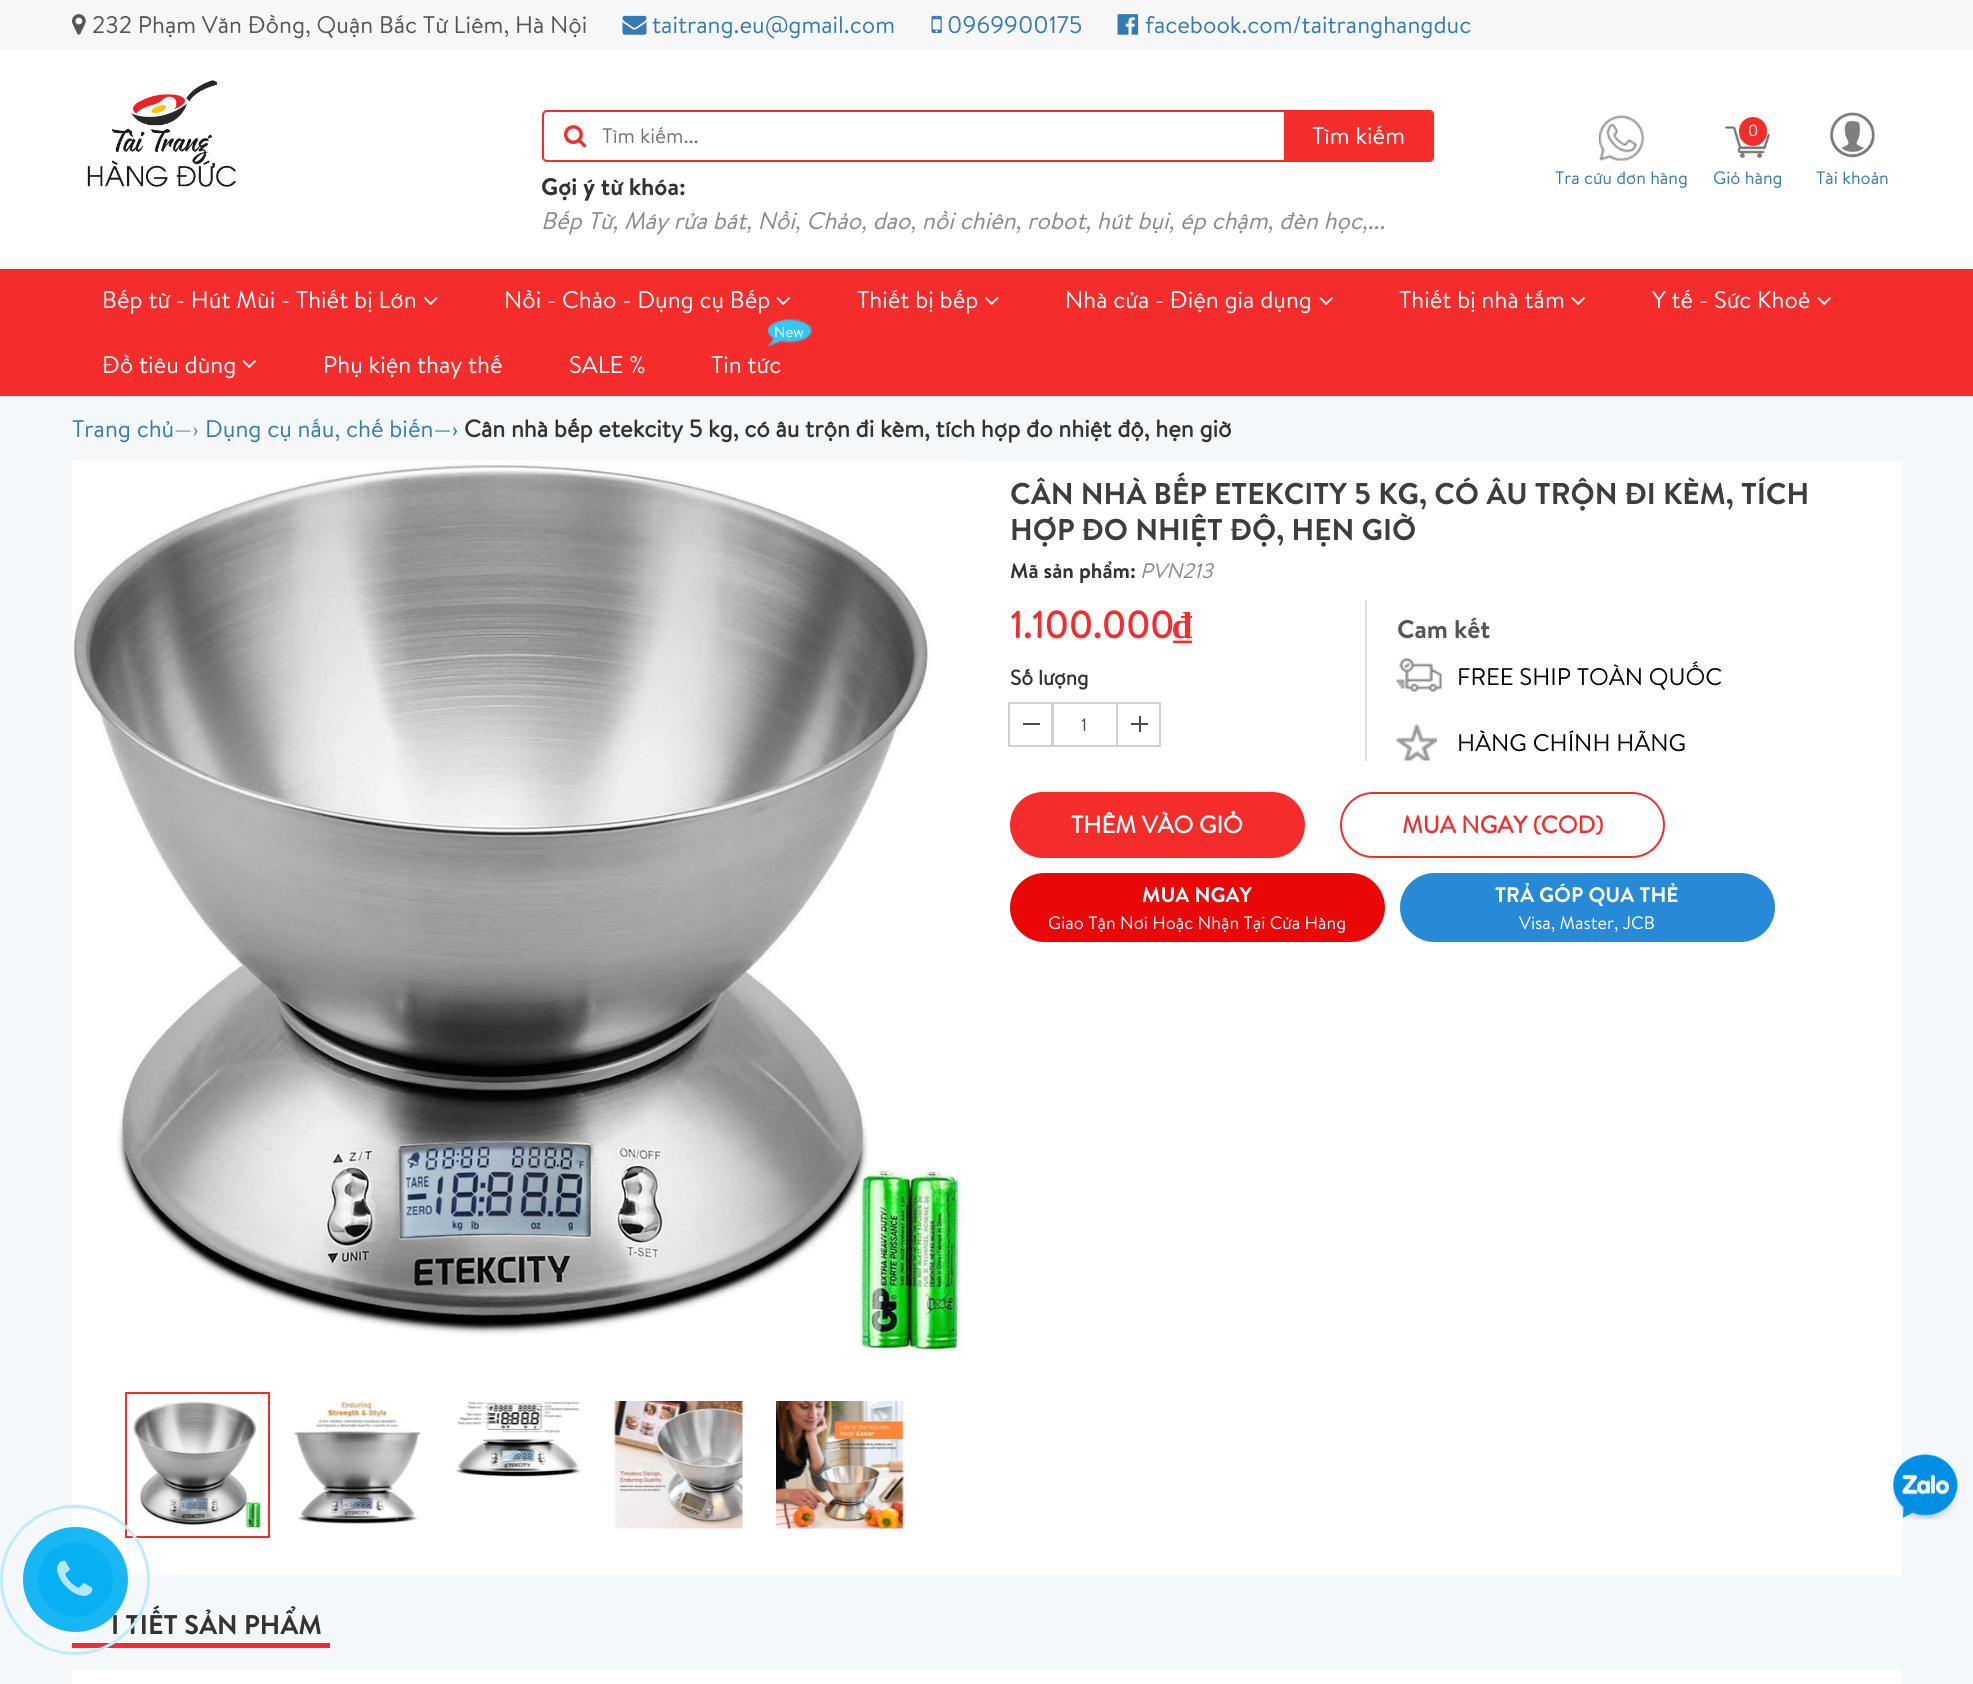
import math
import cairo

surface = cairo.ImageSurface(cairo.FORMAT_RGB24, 1973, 1684)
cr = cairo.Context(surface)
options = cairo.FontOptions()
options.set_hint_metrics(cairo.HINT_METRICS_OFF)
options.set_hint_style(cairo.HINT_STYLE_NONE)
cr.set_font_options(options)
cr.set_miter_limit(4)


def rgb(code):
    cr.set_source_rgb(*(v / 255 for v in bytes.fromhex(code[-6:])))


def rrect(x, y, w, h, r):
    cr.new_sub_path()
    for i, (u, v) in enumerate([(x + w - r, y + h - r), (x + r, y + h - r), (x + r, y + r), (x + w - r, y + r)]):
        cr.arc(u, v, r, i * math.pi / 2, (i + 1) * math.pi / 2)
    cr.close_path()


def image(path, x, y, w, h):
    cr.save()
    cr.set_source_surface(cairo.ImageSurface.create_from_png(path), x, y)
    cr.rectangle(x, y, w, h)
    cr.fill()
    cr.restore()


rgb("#f4f8fa")
cr.paint()
rgb("#ffffff")
cr.rectangle(0, 50, 1973, 219)
cr.fill()
rgb("#f7f7f7")
cr.rectangle(0, 0, 1973, 50)
cr.fill()
image("img/1.png", 72, 14, 14, 21)
image("img/2.png", 622, 15, 25, 20)
image("img/3.png", 931, 15, 11, 18)
image("img/4.png", 1117, 14, 22, 21)
image("img/5.png", 87, 80, 149, 107)
rrect(543, 111, 890, 50, 4)
rgb("#f42c2c")
cr.stroke()
image("img/6.png", 564, 125, 23, 23)
cr.new_path()
cr.move_to(1284, 110)
cr.line_to(1429, 110)
cr.curve_to(1432, 110, 1434, 112, 1434, 115)
cr.line_to(1434, 157)
cr.curve_to(1434, 160, 1432, 162, 1429, 162)
cr.line_to(1284, 162)
cr.close_path()
cr.fill()
image("img/7.png", 1599, 115, 45, 46)
image("img/8.png", 1725, 126, 45, 33)
rrect(1739, 117, 28, 29, 14)
cr.fill()
image("img/9.png", 1830, 112, 45, 46)
cr.rectangle(0, 269, 1973, 127)
cr.fill()
image("img/10.png", 424, 297, 14, 8)
image("img/11.png", 776, 297, 14, 8)
image("img/10.png", 985, 297, 14, 8)
image("img/11.png", 1319, 297, 14, 8)
image("img/11.png", 1571, 297, 14, 8)
image("img/11.png", 1817, 297, 14, 8)
image("img/11.png", 242, 360, 14, 8)
image("img/12.png", 768, 319, 44, 28)
rgb("#ffffff")
cr.rectangle(72, 461, 1830, 1114)
cr.fill()
image("img/13.png", 72, 460, 892, 894)
cr.rectangle(126, 1393, 143, 144)
rgb("#f42c2c")
cr.stroke()
image("img/14.png", 133, 1401, 129, 128)
image("img/15.png", 294, 1401, 128, 123)
image("img/16.png", 455, 1401, 127, 76)
image("img/17.png", 614, 1401, 129, 128)
image("img/18.png", 776, 1401, 128, 128)
cr.rectangle(1009, 703, 43, 43)
rgb("#d1d1d1")
cr.stroke()
rgb("#4d4d4d")
cr.rectangle(1023, 723, 17, 2)
cr.fill()
cr.rectangle(1053, 703, 64, 43)
rgb("#d1d1d1")
cr.stroke()
cr.rectangle(1117, 703, 43, 43)
cr.stroke()
for x, y, w, h, color in [
    (1131, 723, 17, 2, "#4d4d4d"),
    (1139, 716, 2, 16, "#4d4d4d"),
    (1365, 600, 2, 161, "#dfdfdf"),
]:
    rgb(color)
    cr.rectangle(x, y, w, h)
    cr.fill()
image("img/19.png", 1396, 658, 46, 34)
image("img/20.png", 1396, 724, 41, 37)
rgb("#f42c2c")
rrect(1011, 793, 293, 64, 32)
cr.fill_preserve()
cr.stroke()
rrect(1341, 793, 323, 64, 32)
cr.stroke()
rgb("#e90707")
rrect(1010, 873, 375, 69, 34.5)
cr.fill()
rgb("#288ad6")
rrect(1400, 873, 375, 69, 34.5)
cr.fill()
rgb("#f42c2c")
cr.rectangle(72, 1643, 258, 5)
cr.fill()
rgb("#ffffff")
cr.rectangle(72, 1670, 1830, 14)
cr.fill()
image("img/21.png", 1892, 1454, 67, 66)
cr.select_font_face("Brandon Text")
cr.set_font_size(24)
rgb("#555555")
cr.move_to(92, 33)
cr.show_text("232 Phạm Văn Đồng, Quận Bắc Từ Liêm, Hà Nội")
rgb("#337ab7")
for x, y, s in [
    (652, 33, "taitrang.eu@gmail.com"),
    (947, 33, "0969900175"),
    (1145, 33, "facebook.com/taitranghangduc"),
]:
    cr.move_to(x, y)
    cr.show_text(s)
cr.set_font_size(21)
rgb("#757575")
cr.move_to(602, 143)
cr.show_text("Tìm kiếm...")
cr.set_font_size(24)
rgb("#ffffff")
cr.move_to(1312, 144)
cr.show_text("Tìm kiếm")
cr.select_font_face("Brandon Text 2", cairo.FONT_SLANT_NORMAL, cairo.FONT_WEIGHT_BOLD)
rgb("#333333")
cr.move_to(541, 195)
cr.show_text("Gợi ý từ khóa:")
cr.select_font_face("Brandon Text", cairo.FONT_SLANT_ITALIC)
rgb("#888888")
cr.move_to(541, 229)
cr.show_text("Bếp Từ, Máy rửa bát, Nồi, Chảo, dao, nồi chiên, robot, hút bụi, ép chậm, đèn học,...")
cr.select_font_face("Brandon Text")
cr.set_font_size(18)
rgb("#337ab7")
cr.move_to(1555, 184)
cr.show_text("Tra cứu đơn hàng")
cr.set_font_size(16)
rgb("#ffffff")
cr.move_to(1748, 136)
cr.show_text("0")
cr.set_font_size(18)
rgb("#337ab7")
cr.move_to(1713, 184)
cr.show_text("Giỏ hàng")
cr.move_to(1816, 184)
cr.show_text("Tài khoản")
cr.set_font_size(24)
rgb("#ffffff")
for x, y, s in [
    (102, 308, "Bếp từ - Hút Mùi - Thiết bị Lớn"),
    (504, 308, "Nồi - Chảo - Dụng cụ Bếp"),
    (857, 308, "Thiết bị bếp"),
    (1065, 308, "Nhà cửa - Điện gia dụng"),
    (1399, 308, "Thiết bị nhà tắm"),
    (1652, 308, "Y tế - Sức Khoẻ"),
    (102, 373, "Đồ tiêu dùng"),
    (323, 373, "Phụ kiện thay thế"),
    (569, 373, "SALE %"),
]:
    cr.move_to(x, y)
    cr.show_text(s)
cr.set_font_size(15)
cr.move_to(774, 337)
cr.show_text("New")
cr.set_font_size(24)
cr.move_to(711, 373)
cr.show_text("Tin tức")
rgb("#337ab7")
cr.move_to(72, 437)
cr.show_text("Trang chủ")
rgb("#888888")
cr.move_to(174, 437)
cr.show_text("—›")
rgb("#337ab7")
cr.move_to(205, 437)
cr.show_text("Dụng cụ nấu, chế biến—›")
cr.select_font_face("Brandon Text", cairo.FONT_SLANT_NORMAL, cairo.FONT_WEIGHT_BOLD)
rgb("#333333")
cr.move_to(464, 437)
cr.show_text("Cân nhà bếp etekcity 5 kg, có âu trộn đi kèm, tích hợp đo nhiệt độ, hẹn giờ")
cr.select_font_face("Brandon Text 2", cairo.FONT_SLANT_NORMAL, cairo.FONT_WEIGHT_BOLD)
cr.set_font_size(30)
rgb("#3d3d3d")
cr.move_to(1010, 504)
cr.show_text("CÂN NHÀ BẾP ETEKCITY 5 KG, CÓ ÂU TRỘN ĐI KÈM, TÍCH")
cr.move_to(1010, 540)
cr.show_text("HỢP ĐO NHIỆT ĐỘ, HẸN GIỜ")
cr.set_font_size(21)
rgb("#333333")
cr.move_to(1010, 578)
cr.show_text("Mã sản phẩm:")
cr.select_font_face("Brandon Text", cairo.FONT_SLANT_ITALIC)
rgb("#888888")
cr.move_to(1140, 578)
cr.show_text("PVN213")
cr.select_font_face("Brandon Text", cairo.FONT_SLANT_NORMAL, cairo.FONT_WEIGHT_BOLD)
cr.set_font_size(37.5)
rgb("#f42c2c")
cr.move_to(1010, 638)
cr.show_text("1.100.000")
cr.select_font_face("Liberation Serif", cairo.FONT_SLANT_NORMAL, cairo.FONT_WEIGHT_BOLD)
cr.move_to(1173, 638)
cr.show_text("₫")
cr.select_font_face("Brandon Text", cairo.FONT_SLANT_NORMAL, cairo.FONT_WEIGHT_BOLD)
cr.set_font_size(21)
rgb("#333333")
cr.move_to(1010, 685)
cr.show_text("Số lượng")
cr.select_font_face("Brandon Text")
cr.set_font_size(18)
rgb("#4c4c4c")
cr.move_to(1081, 731)
cr.show_text("1")
cr.select_font_face("Brandon Text 2", cairo.FONT_SLANT_NORMAL, cairo.FONT_WEIGHT_BOLD)
cr.set_font_size(25.5)
rgb("#555555")
cr.move_to(1397, 638)
cr.show_text("Cam kết")
cr.select_font_face("Brandon Text")
cr.set_font_size(24)
rgb("#000000")
cr.move_to(1457, 685)
cr.show_text("FREE SHIP TOÀN QUỐC")
cr.move_to(1457, 751)
cr.show_text("HÀNG CHÍNH HÃNG")
cr.select_font_face("Brandon Text", cairo.FONT_SLANT_NORMAL, cairo.FONT_WEIGHT_BOLD)
rgb("#ffffff")
cr.move_to(1071, 833)
cr.show_text("THÊM VÀO GIỎ")
rgb("#f42c2c")
cr.move_to(1402, 833)
cr.show_text("MUA NGAY (COD)")
cr.select_font_face("Brandon Text 2", cairo.FONT_SLANT_NORMAL, cairo.FONT_WEIGHT_BOLD)
cr.set_font_size(21)
rgb("#ffffff")
cr.move_to(1142, 902)
cr.show_text("MUA NGAY")
cr.select_font_face("Brandon Text")
cr.set_font_size(18)
cr.move_to(1048, 929)
cr.show_text("Giao Tận Nơi Hoặc Nhận Tại Cửa Hàng")
cr.select_font_face("Brandon Text 2", cairo.FONT_SLANT_NORMAL, cairo.FONT_WEIGHT_BOLD)
cr.set_font_size(21)
cr.move_to(1495, 902)
cr.show_text("TRẢ GÓP QUA THẺ")
cr.select_font_face("Brandon Text")
cr.set_font_size(18)
cr.move_to(1519, 929)
cr.show_text("Visa, Master, JCB")
cr.select_font_face("Brandon Text 2", cairo.FONT_SLANT_NORMAL, cairo.FONT_WEIGHT_BOLD)
cr.set_font_size(27)
rgb("#333333")
cr.move_to(111, 1634)
cr.show_text("I TIẾT SẢN PHẨM")
cr.new_path()
cr.arc(75, 1580, 73.5, 0, 2 * math.pi)
rgb("#bfebfc")
cr.set_line_width(3)
cr.stroke()
cr.set_source_rgba(0, 0.686, 0.949, 0.9)
cr.arc(75.5, 1579.5, 52.5, 0, 2 * math.pi)
cr.fill()
cr.set_source_rgba(0, 0.686, 0.949, 0.7)
cr.arc(75.5, 1579.5, 37.5, 0, 2 * math.pi)
cr.fill()
image("img/22.png", 57, 1560, 36, 36)
surface.write_to_png("page.png")
